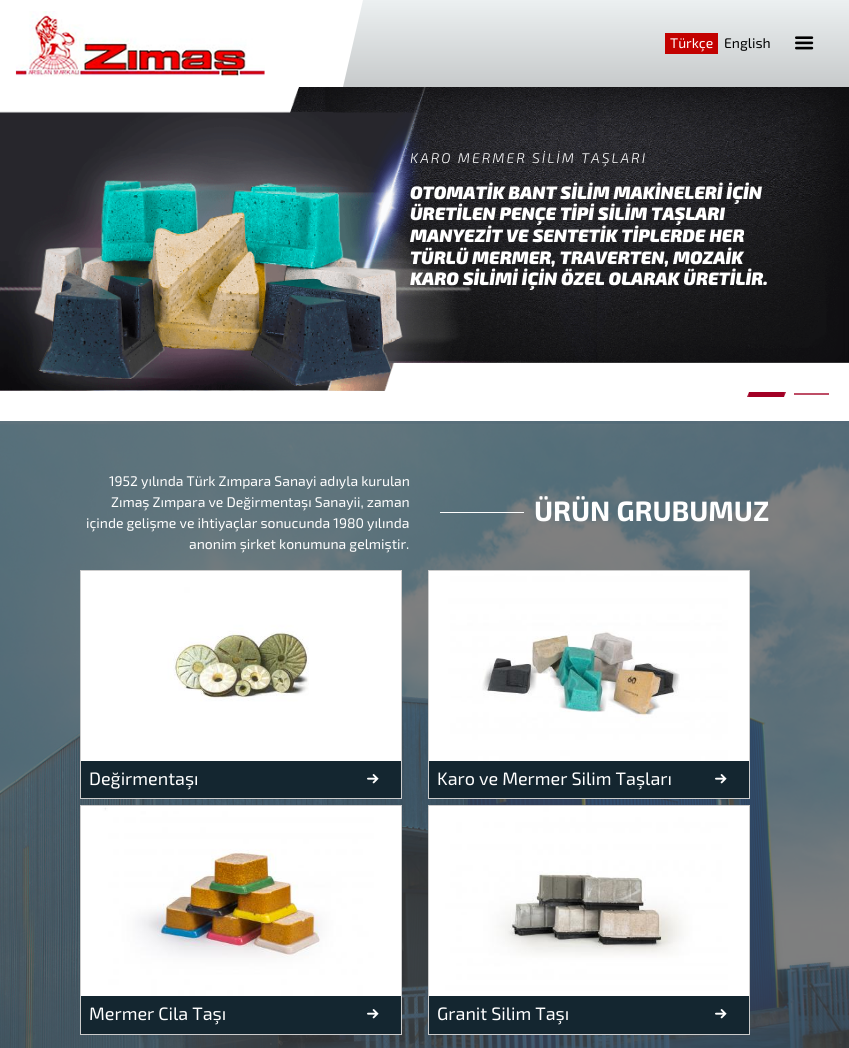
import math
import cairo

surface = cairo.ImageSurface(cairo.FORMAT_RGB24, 849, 1048)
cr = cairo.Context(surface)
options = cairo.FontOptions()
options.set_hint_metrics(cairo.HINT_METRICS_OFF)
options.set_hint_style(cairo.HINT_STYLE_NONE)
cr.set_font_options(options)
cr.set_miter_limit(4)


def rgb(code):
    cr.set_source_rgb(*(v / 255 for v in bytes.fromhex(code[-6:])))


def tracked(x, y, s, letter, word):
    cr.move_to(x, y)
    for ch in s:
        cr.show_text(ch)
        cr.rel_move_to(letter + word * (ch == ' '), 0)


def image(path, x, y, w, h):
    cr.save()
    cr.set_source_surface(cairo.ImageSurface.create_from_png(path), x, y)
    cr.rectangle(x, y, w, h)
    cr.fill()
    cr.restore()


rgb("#ffffff")
cr.paint()
image("img/1.png", 15, 11, 250, 66)
gradient = cairo.LinearGradient(589, 0, 589, 87)
gradient.add_color_stop_rgba(0, 0.925, 0.941, 0.945, 1)
gradient.add_color_stop_rgba(1, 0.78, 0.792, 0.796, 1)
cr.set_source(gradient)
cr.rectangle(343, 0, 491, 87)
cr.fill()
rgb("#ffffff")
cr.new_path()
cr.move_to(343, 0)
cr.line_to(363, 0)
cr.line_to(343, 87)
cr.close_path()
cr.fill()
rgb("#c30100")
cr.rectangle(665, 33, 53, 21)
cr.fill()
image("img/2.png", 795, 36, 19, 14)
gradient = cairo.LinearGradient(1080, 0, 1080, 87)
gradient.add_color_stop_rgba(0, 0.925, 0.941, 0.945, 1)
gradient.add_color_stop_rgba(1, 0.78, 0.792, 0.796, 1)
cr.set_source(gradient)
cr.rectangle(834, 0, 15, 87)
cr.fill()
image("img/3.png", 0, 87, 849, 304)
rgb("#a20025")
cr.rectangle(749, 392, 35, 5)
cr.fill()
rgb("#a81a3a")
cr.new_path()
cr.move_to(749, 397)
cr.line_to(747, 397)
cr.line_to(749, 392)
cr.close_path()
cr.move_to(784, 392)
cr.line_to(786, 392)
cr.line_to(784, 397)
cr.close_path()
cr.fill()
rgb("#be4d66")
cr.rectangle(794, 393, 35, 2)
cr.fill()
image("img/4.png", 0, 421, 849, 627)
rgb("#ffffff")
cr.rectangle(440, 512, 84, 1)
cr.fill()
cr.rectangle(80.5, 570.5, 321, 228)
rgb("#cccccc")
cr.set_line_width(1)
cr.stroke()
image("img/5.png", 81, 571, 320, 190)
rgb("#142630")
cr.rectangle(81, 761, 320, 37)
cr.fill()
image("img/6.png", 367, 774, 12, 10)
cr.rectangle(428.5, 570.5, 321, 228)
rgb("#cccccc")
cr.stroke()
image("img/7.png", 429, 571, 320, 190)
rgb("#142630")
cr.rectangle(429, 761, 320, 37)
cr.fill()
image("img/6.png", 715, 774, 12, 10)
cr.rectangle(80.5, 805.5, 321, 229)
rgb("#cccccc")
cr.stroke()
image("img/8.png", 81, 806, 320, 190)
rgb("#142630")
cr.rectangle(81, 996, 320, 38)
cr.fill()
image("img/6.png", 367, 1009, 12, 10)
cr.rectangle(428.5, 805.5, 321, 229)
rgb("#cccccc")
cr.stroke()
image("img/9.png", 429, 806, 320, 190)
rgb("#142630")
cr.rectangle(429, 996, 320, 38)
cr.fill()
image("img/6.png", 715, 1009, 12, 10)
cr.select_font_face("Exo 2")
cr.set_font_size(14)
rgb("#ffffff")
cr.move_to(670, 48)
cr.show_text("Türkçe")
rgb("#000000")
cr.move_to(724, 48)
cr.show_text("English")
cr.select_font_face("Exo 2 Light", cairo.FONT_SLANT_ITALIC)
rgb("#ffffff")
tracked(410, 163, "KARO MERMER SİLİM TAŞLARI", 2, 0)
cr.select_font_face("Exo 2 Black", cairo.FONT_SLANT_ITALIC)
cr.set_font_size(18)
for x, y, s in [
    (410, 199, "OTOMATİK BANT SİLİM MAKİNELERİ İÇİN"),
    (410, 220, "ÜRETİLEN PENÇE TİPİ SİLİM TAŞLARI"),
    (410, 242, "MANYEZİT VE SENTETİK TİPLERDE HER"),
    (410, 264, "TÜRLÜ MERMER, TRAVERTEN, MOZAİK"),
    (410, 285, "KARO SİLİMİ İÇİN ÖZEL OLARAK ÜRETİLİR."),
]:
    cr.move_to(x, y)
    cr.show_text(s)
cr.select_font_face("Exo 2")
cr.set_font_size(14)
for x, y, s in [
    (109, 486, "1952 yılında Türk Zımpara Sanayi adıyla kurulan"),
    (111, 507, "Zımaş Zımpara ve Değirmentaşı Sanayii, zaman"),
    (86, 528, "içinde gelişme ve ihtiyaçlar sonucunda 1980 yılında"),
    (189, 549, "anonim şirket konumuna gelmiştir."),
]:
    cr.move_to(x, y)
    cr.show_text(s)
cr.select_font_face("Exo 2", cairo.FONT_SLANT_NORMAL, cairo.FONT_WEIGHT_BOLD)
cr.set_font_size(28)
cr.move_to(534, 521)
cr.show_text("ÜRÜN GRUBUMUZ")
cr.select_font_face("Exo 2")
cr.set_font_size(18)
for x, y, s in [
    (89, 785, "Değirmentaşı"),
    (437, 785, "Karo ve Mermer Silim Taşları"),
    (89, 1020, "Mermer Cila Taşı"),
    (437, 1020, "Granit Silim Taşı"),
]:
    cr.move_to(x, y)
    cr.show_text(s)
surface.write_to_png("page.png")
